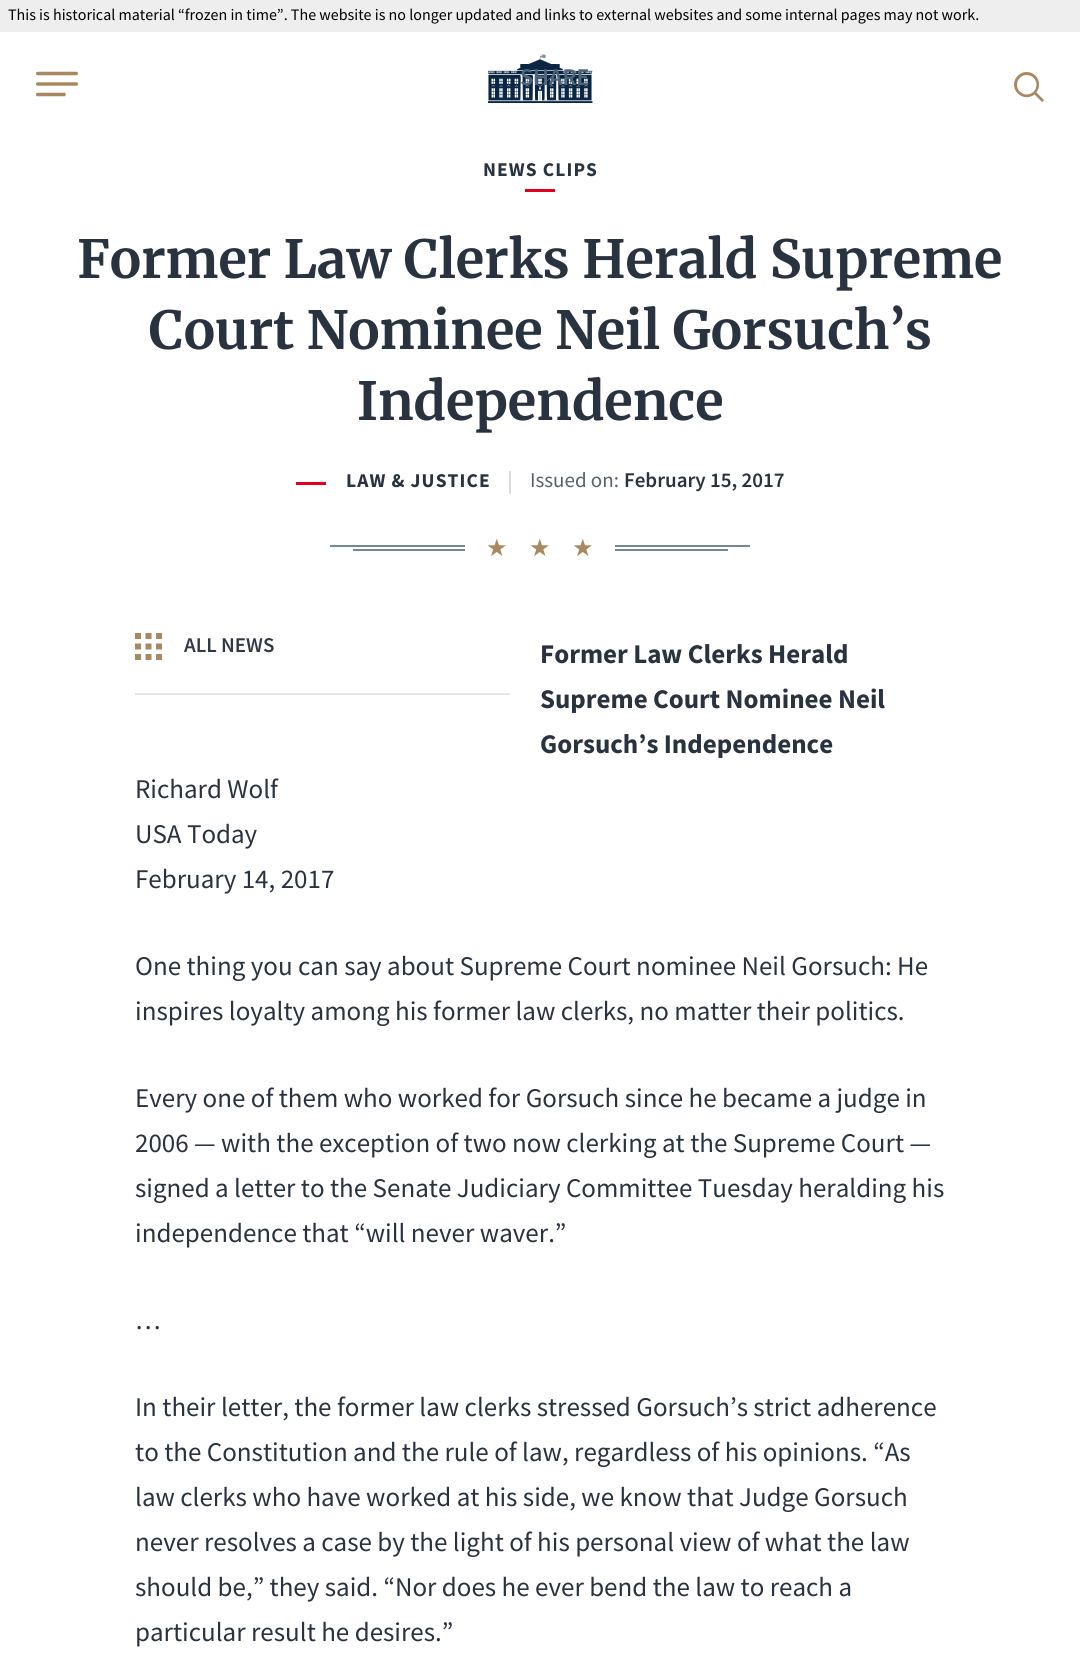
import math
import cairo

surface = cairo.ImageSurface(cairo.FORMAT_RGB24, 1080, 1663)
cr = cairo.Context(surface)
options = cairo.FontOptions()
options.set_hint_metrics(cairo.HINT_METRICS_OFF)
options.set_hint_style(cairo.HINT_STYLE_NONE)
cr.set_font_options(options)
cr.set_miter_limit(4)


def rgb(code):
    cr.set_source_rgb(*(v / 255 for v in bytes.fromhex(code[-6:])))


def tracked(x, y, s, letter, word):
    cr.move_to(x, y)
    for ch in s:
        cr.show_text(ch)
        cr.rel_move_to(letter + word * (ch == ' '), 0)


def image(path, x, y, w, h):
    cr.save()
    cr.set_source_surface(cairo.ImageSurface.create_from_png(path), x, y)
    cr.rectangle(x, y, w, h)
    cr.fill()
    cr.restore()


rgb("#ffffff")
cr.paint()
rgb("#eeeeee")
cr.rectangle(0, 0, 1080, 32)
cr.fill()
image("img/1.png", 36, 71, 42, 26)
image("img/2.png", 488, 54, 105, 49)
image("img/3.png", 1014, 72, 30, 30)
for x, y, w, h, color in [
    (525, 189, 30, 3, "#e20020"),
    (296, 482, 30, 3, "#e20020"),
    (509, 471, 2, 23, "#dbdbdb"),
    (330, 545, 135, 2, "#748796"),
    (353, 549, 112, 2, "#748796"),
    (615, 545, 135, 2, "#748796"),
    (615, 549, 113, 2, "#748796"),
    (135, 693, 375, 2, "#e1e6ea"),
]:
    rgb(color)
    cr.rectangle(x, y, w, h)
    cr.fill()
image("img/4.png", 135, 633, 27, 27)
cr.select_font_face("Source Sans Pro")
cr.set_font_size(16)
rgb("#000000")
cr.move_to(8, 20)
cr.show_text("This is historical material “frozen in time”. The website is no longer updated and links to external websites and some internal pages may not work.")
cr.select_font_face("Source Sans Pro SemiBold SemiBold")
cr.set_font_size(24)
rgb("#4f6379")
cr.move_to(520, 85)
cr.show_text("SHARE")
cr.select_font_face("Source Sans Pro", cairo.FONT_SLANT_NORMAL, cairo.FONT_WEIGHT_BOLD)
cr.set_font_size(19.5)
rgb("#293340")
tracked(483, 176, "NEWS CLIPS", 1.1, 0)
cr.select_font_face("Merriweather", cairo.FONT_SLANT_NORMAL, cairo.FONT_WEIGHT_BOLD)
cr.set_font_size(52.5)
for x, y, s in [
    (77, 278, "Former Law Clerks Herald Supreme"),
    (149, 349, "Court Nominee Neil Gorsuch’s"),
    (357, 420, "Independence"),
]:
    cr.move_to(x, y)
    cr.show_text(s)
cr.select_font_face("Source Sans Pro", cairo.FONT_SLANT_NORMAL, cairo.FONT_WEIGHT_BOLD)
cr.set_font_size(19.5)
tracked(346, 487, "LAW & JUSTICE", 1.1, 0)
cr.select_font_face("Source Sans Pro")
cr.set_font_size(21)
rgb("#56616d")
cr.move_to(530, 487)
cr.show_text("Issued on:")
cr.select_font_face("Source Sans Pro SemiBold SemiBold")
rgb("#293340")
cr.move_to(624, 487)
cr.show_text("February 15, 2017")
cr.select_font_face("DejaVu Sans")
cr.set_font_size(24)
rgb("#a98860")
tracked(486, 556, "★★★", 21.5, 0)
cr.select_font_face("Source Sans Pro SemiBold SemiBold")
cr.set_font_size(21)
rgb("#323a45")
cr.move_to(184, 652)
cr.show_text("ALL NEWS")
cr.select_font_face("Source Sans Pro", cairo.FONT_SLANT_NORMAL, cairo.FONT_WEIGHT_BOLD)
cr.set_font_size(27)
rgb("#293340")
for x, y, s in [
    (540, 663, "Former Law Clerks Herald"),
    (540, 708, "Supreme Court Nominee Neil"),
    (540, 753, "Gorsuch’s Independence"),
]:
    cr.move_to(x, y)
    cr.show_text(s)
cr.select_font_face("Source Sans Pro")
for x, y, s in [
    (135, 798, "Richard Wolf"),
    (135, 843, "USA Today"),
    (135, 888, "February 14, 2017"),
    (135, 975, "One thing you can say about Supreme Court nominee Neil Gorsuch: He"),
    (135, 1020, "inspires loyalty among his former law clerks, no matter their politics."),
    (135, 1107, "Every one of them who worked for Gorsuch since he became a judge in"),
    (135, 1152, "2006 — with the exception of two now clerking at the Supreme Court —"),
    (135, 1197, "signed a letter to the Senate Judiciary Committee Tuesday heralding his"),
    (135, 1242, "independence that “will never waver.”"),
    (135, 1329, "…"),
    (135, 1416, "In their letter, the former law clerks stressed Gorsuch’s strict adherence"),
    (135, 1461, "to the Constitution and the rule of law, regardless of his opinions. “As"),
    (135, 1506, "law clerks who have worked at his side, we know that Judge Gorsuch"),
    (135, 1551, "never resolves a case by the light of his personal view of what the law"),
    (135, 1596, "should be,” they said. “Nor does he ever bend the law to reach a"),
    (135, 1641, "particular result he desires.”"),
]:
    cr.move_to(x, y)
    cr.show_text(s)
surface.write_to_png("page.png")
